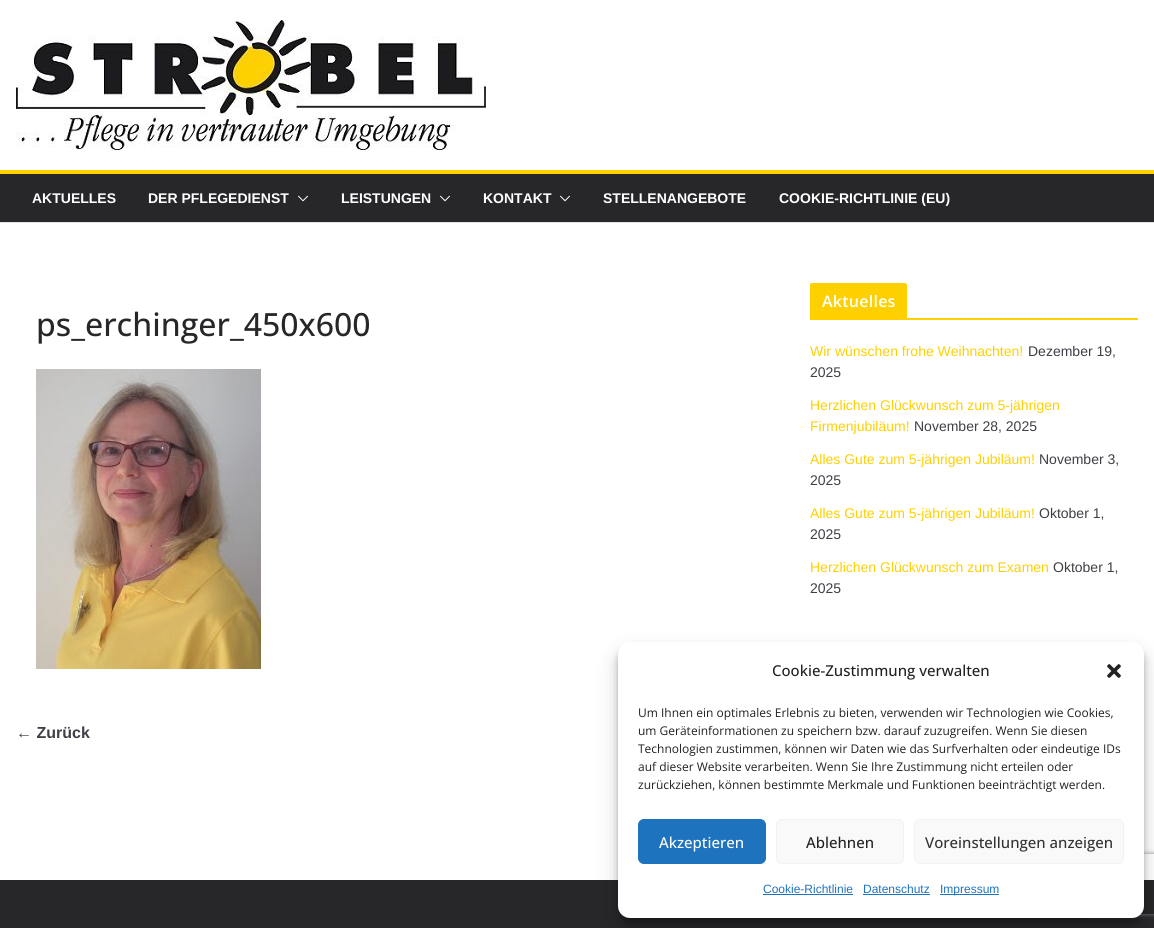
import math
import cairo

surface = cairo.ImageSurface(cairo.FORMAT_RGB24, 1154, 928)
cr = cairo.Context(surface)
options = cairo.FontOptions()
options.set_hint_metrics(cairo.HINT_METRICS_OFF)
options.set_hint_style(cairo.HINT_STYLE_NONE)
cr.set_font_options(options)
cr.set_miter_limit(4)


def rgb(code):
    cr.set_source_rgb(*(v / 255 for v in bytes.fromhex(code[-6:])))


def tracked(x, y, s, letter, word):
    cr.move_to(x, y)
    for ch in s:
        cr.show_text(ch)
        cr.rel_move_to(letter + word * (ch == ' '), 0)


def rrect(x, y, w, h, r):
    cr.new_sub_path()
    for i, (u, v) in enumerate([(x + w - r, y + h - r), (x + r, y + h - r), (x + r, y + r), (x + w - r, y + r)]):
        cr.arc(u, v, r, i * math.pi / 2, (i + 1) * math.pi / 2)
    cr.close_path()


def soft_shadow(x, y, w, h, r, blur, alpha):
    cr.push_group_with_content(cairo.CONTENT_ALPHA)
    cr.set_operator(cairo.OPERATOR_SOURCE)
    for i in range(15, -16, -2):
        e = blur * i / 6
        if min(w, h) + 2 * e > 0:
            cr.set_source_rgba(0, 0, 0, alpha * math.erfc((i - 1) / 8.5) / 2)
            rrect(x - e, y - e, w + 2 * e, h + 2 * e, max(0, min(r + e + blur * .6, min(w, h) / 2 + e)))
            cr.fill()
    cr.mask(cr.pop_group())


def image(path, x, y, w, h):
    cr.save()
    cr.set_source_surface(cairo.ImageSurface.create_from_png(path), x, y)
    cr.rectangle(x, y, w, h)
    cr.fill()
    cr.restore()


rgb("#ffffff")
cr.paint()
rgb("#e4e4e7")
cr.rectangle(0, 222, 1154, 1)
cr.fill()
image("img/1.png", 16, 20, 470, 130)
rgb("#27272a")
cr.rectangle(0, 174, 1154, 48)
cr.fill()
rgb("#fed000")
cr.rectangle(0, 170, 1154, 4)
cr.fill()
image("img/2.png", 298, 195, 10, 7)
image("img/2.png", 440, 195, 10, 7)
image("img/2.png", 560, 195, 10, 7)
image("img/3.png", 36, 369, 225, 300)
cr.rectangle(810, 318, 328, 2)
cr.fill()
cr.new_path()
cr.move_to(812, 283)
cr.line_to(905, 283)
cr.curve_to(906, 283, 907, 284, 907, 285)
cr.line_to(907, 318)
cr.line_to(810, 318)
cr.line_to(810, 285)
cr.curve_to(810, 284, 811, 283, 812, 283)
cr.close_path()
cr.fill()
rgb("#27272a")
cr.rectangle(0, 880, 1154, 48)
cr.fill()
rgb("#000000")
soft_shadow(618, 648, 526, 276, 12, 3, 0.23)
soft_shadow(618, 652, 526, 276, 12, 10, 0.19)
cr.save()
cr.set_fill_rule(cairo.FILL_RULE_EVEN_ODD)
cr.new_path()
cr.move_to(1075, 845)
cr.line_to(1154, 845)
cr.line_to(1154, 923)
cr.line_to(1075, 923)
cr.close_path()
cr.move_to(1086, 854)
cr.line_to(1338, 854)
cr.curve_to(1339, 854, 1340, 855, 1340, 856)
cr.line_to(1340, 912)
cr.curve_to(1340, 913, 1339, 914, 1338, 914)
cr.line_to(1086, 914)
cr.curve_to(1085, 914, 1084, 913, 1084, 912)
cr.line_to(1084, 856)
cr.curve_to(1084, 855, 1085, 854, 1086, 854)
cr.close_path()
cr.clip()
rgb("#808080")
soft_shadow(1084, 854, 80, 60, 2, 2.5, 1)
cr.restore()
rgb("#ffffff")
rrect(618, 642, 526, 276, 12)
cr.fill()
image("img/4.png", 1107, 664, 14, 14)
rgb("#1e73be")
rrect(638.5, 819.5, 127, 44, 5.5)
cr.fill_preserve()
cr.set_line_width(1)
cr.stroke()
rgb("#f9f9f9")
rrect(776.5, 819.5, 127, 44, 5.5)
cr.fill_preserve()
rgb("#f2f2f2")
cr.stroke()
rgb("#f9f9f9")
rrect(914.5, 819.5, 209, 44, 5.5)
cr.fill_preserve()
rgb("#f2f2f2")
cr.stroke()
for x, y, w, h, color in [
    (763, 894, 90, 1, "#1e73be"),
    (863, 894, 67, 1, "#1e73be"),
    (940, 894, 59, 1, "#1e73be"),
]:
    rgb(color)
    cr.rectangle(x, y, w, h)
    cr.fill()
cr.select_font_face("Liberation Sans", cairo.FONT_SLANT_NORMAL, cairo.FONT_WEIGHT_BOLD)
cr.set_font_size(14)
rgb("#ffffff")
for x, y, s in [
    (32, 203, "AKTUELLES"),
    (148, 203, "DER PFLEGEDIENST"),
    (341, 203, "LEISTUNGEN"),
    (483, 203, "KONTAKT"),
    (603, 203, "STELLENANGEBOTE"),
    (779, 203, "COOKIE-RICHTLINIE (EU)"),
]:
    cr.move_to(x, y)
    cr.show_text(s)
cr.select_font_face("Open Sans Medium")
cr.set_font_size(32)
rgb("#27272a")
cr.move_to(36, 336)
cr.show_text("ps_erchinger_450x600")
cr.select_font_face("Liberation Sans", cairo.FONT_SLANT_NORMAL, cairo.FONT_WEIGHT_BOLD)
cr.set_font_size(16)
rgb("#3f3f46")
cr.move_to(16, 738)
cr.show_text("← Zurück")
cr.select_font_face("Open Sans SemiBold")
rgb("#ffffff")
tracked(822, 307, "Aktuelles", 0.25, 0)
cr.select_font_face("Liberation Sans")
cr.set_font_size(14)
rgb("#fed000")
cr.move_to(810, 356)
cr.show_text("Wir wünschen frohe Weihnachten!")
rgb("#3f3f46")
cr.move_to(1028, 356)
cr.show_text("Dezember 19,")
cr.move_to(810, 377)
cr.show_text("2025")
rgb("#fed000")
cr.move_to(810, 410)
cr.show_text("Herzlichen Glückwunsch zum 5-jährigen")
cr.move_to(810, 431)
cr.show_text("Firmenjubiläum!")
rgb("#3f3f46")
cr.move_to(914, 431)
cr.show_text("November 28, 2025")
rgb("#fed000")
cr.move_to(810, 464)
cr.show_text("Alles Gute zum 5-jährigen Jubiläum!")
rgb("#3f3f46")
cr.move_to(1039, 464)
cr.show_text("November 3,")
cr.move_to(810, 485)
cr.show_text("2025")
rgb("#fed000")
cr.move_to(810, 518)
cr.show_text("Alles Gute zum 5-jährigen Jubiläum!")
rgb("#3f3f46")
cr.move_to(1039, 518)
cr.show_text("Oktober 1,")
cr.move_to(810, 539)
cr.show_text("2025")
rgb("#fed000")
cr.move_to(810, 572)
cr.show_text("Herzlichen Glückwunsch zum Examen")
rgb("#3f3f46")
cr.move_to(1053, 572)
cr.show_text("Oktober 1,")
cr.move_to(810, 593)
cr.show_text("2025")
cr.select_font_face("Open Sans Medium")
cr.set_font_size(15)
rgb("#222222")
cr.move_to(772, 676)
cr.show_text("Cookie-Zustimmung verwalten")
cr.select_font_face("Open Sans")
cr.set_font_size(12)
for x, y, s in [
    (638, 717, "Um Ihnen ein optimales Erlebnis zu bieten, verwenden wir Technologien wie Cookies,"),
    (638, 735, "um Geräteinformationen zu speichern bzw. darauf zuzugreifen. Wenn Sie diesen"),
    (638, 753, "Technologien zustimmen, können wir Daten wie das Surfverhalten oder eindeutige IDs"),
    (638, 771, "auf dieser Website verarbeiten. Wenn Sie Ihre Zustimmung nicht erteilen oder"),
    (638, 789, "zurückziehen, können bestimmte Merkmale und Funktionen beeinträchtigt werden."),
]:
    cr.move_to(x, y)
    cr.show_text(s)
cr.select_font_face("Open Sans Medium")
cr.set_font_size(15)
rgb("#ffffff")
cr.move_to(659, 848)
cr.show_text("Akzeptieren")
rgb("#222222")
cr.move_to(806, 848)
cr.show_text("Ablehnen")
rgb("#333333")
cr.move_to(925, 848)
cr.show_text("Voreinstellungen anzeigen")
cr.select_font_face("Liberation Sans")
cr.set_font_size(12)
rgb("#1e73be")
for x, y, s in [
    (763, 893, "Cookie-Richtlinie"),
    (863, 893, "Datenschutz"),
    (940, 893, "Impressum"),
]:
    cr.move_to(x, y)
    cr.show_text(s)
surface.write_to_png("page.png")
